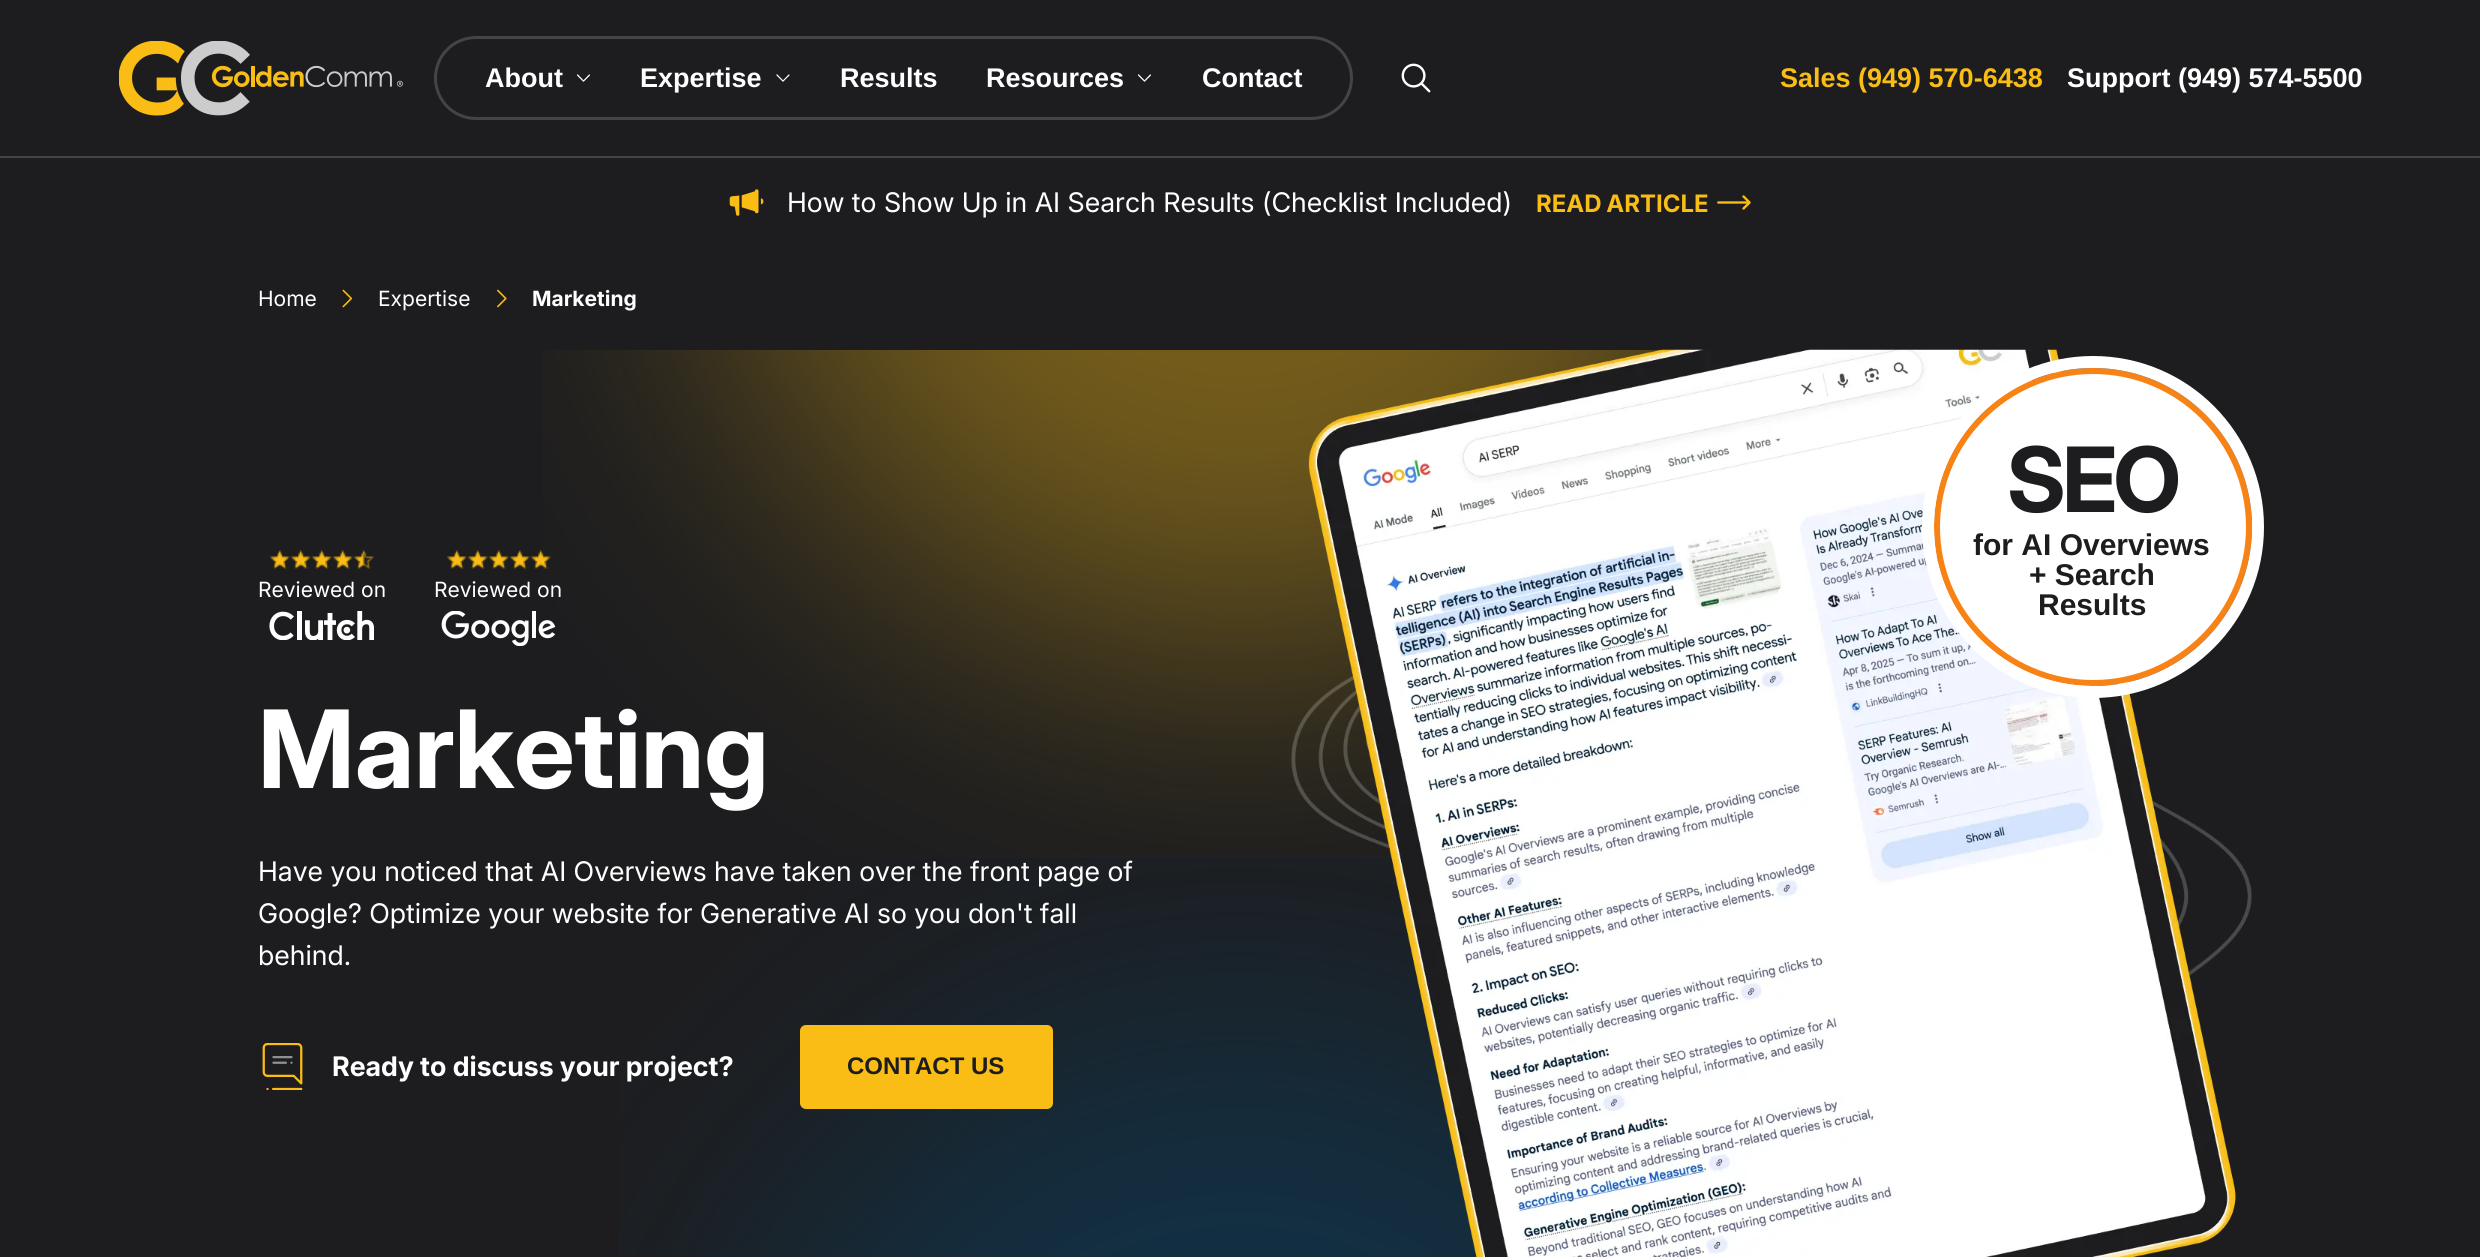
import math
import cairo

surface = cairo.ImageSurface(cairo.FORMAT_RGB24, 2480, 1257)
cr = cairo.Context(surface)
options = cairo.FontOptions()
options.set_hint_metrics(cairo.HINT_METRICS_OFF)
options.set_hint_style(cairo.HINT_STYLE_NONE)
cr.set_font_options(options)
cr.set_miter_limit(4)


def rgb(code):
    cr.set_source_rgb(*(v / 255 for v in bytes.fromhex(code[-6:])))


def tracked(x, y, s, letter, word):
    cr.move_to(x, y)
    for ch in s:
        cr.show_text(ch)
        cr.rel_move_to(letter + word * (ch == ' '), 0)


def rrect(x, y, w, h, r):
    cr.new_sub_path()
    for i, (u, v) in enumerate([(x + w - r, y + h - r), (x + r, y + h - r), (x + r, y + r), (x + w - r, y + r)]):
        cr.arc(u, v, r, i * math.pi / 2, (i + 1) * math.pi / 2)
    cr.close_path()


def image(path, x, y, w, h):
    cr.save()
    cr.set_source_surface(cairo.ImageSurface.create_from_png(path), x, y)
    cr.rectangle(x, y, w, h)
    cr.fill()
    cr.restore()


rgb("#1d1d1f")
cr.paint()
rgb("#444444")
cr.rectangle(0, 156, 2480, 2)
cr.fill()
image("img/1.png", 119, 41, 284, 75)
rrect(435.5, 37.5, 916, 81, 40.5)
cr.set_line_width(3)
cr.stroke()
image("img/2.png", 577, 74, 13, 8)
image("img/3.png", 776, 74, 14, 8)
image("img/2.png", 1138, 74, 13, 8)
image("img/4.png", 1401, 63, 30, 30)
image("img/5.png", 729, 189, 35, 27)
image("img/6.png", 1717, 195, 34, 15)
image("img/7.png", 342, 289, 11, 19)
image("img/8.png", 497, 289, 10, 19)
image("img/9.png", 542, 350, 1121, 508)
image("img/16.png", 619, 855, 858, 402)
image("img/10.png", 1291, 349, 961, 908)
rgb("#ffffff")
cr.arc(2093, 527, 156, 0, 2 * math.pi)
cr.fill_preserve()
rgb("#f98215")
cr.set_line_width(6)
cr.stroke()
image("img/11.png", 270, 550, 104, 19)
image("img/12.png", 269, 611, 105, 29)
image("img/13.png", 447, 550, 104, 19)
image("img/14.png", 441, 611, 115, 35)
image("img/15.png", 262, 1043, 41, 47)
rgb("#f9bd15")
rrect(800, 1025, 253, 84, 6)
cr.fill()
cr.select_font_face("Liberation Sans", cairo.FONT_SLANT_NORMAL, cairo.FONT_WEIGHT_BOLD)
cr.set_font_size(27)
rgb("#ffffff")
for x, y, s in [
    (485, 87, "About"),
    (640, 87, "Expertise"),
    (840, 87, "Results"),
    (986, 87, "Resources"),
    (1202, 87, "Contact"),
]:
    cr.move_to(x, y)
    cr.show_text(s)
rgb("#f9bd15")
cr.move_to(1780, 87)
cr.show_text("Sales (949) 570-6438")
rgb("#ffffff")
cr.move_to(2067, 87)
cr.show_text("Support (949) 574-5500")
cr.select_font_face("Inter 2")
cr.move_to(787, 212)
cr.show_text("How to Show Up in AI Search Results (Checklist Included)")
cr.select_font_face("Inter", cairo.FONT_SLANT_NORMAL, cairo.FONT_WEIGHT_BOLD)
cr.set_font_size(24)
rgb("#f9bd15")
tracked(1536, 212, "READ ARTICLE", 0, -1)
cr.select_font_face("Inter")
cr.set_font_size(21)
rgb("#ffffff")
cr.move_to(258, 306)
cr.show_text("Home")
cr.move_to(378, 306)
cr.show_text("Expertise")
cr.select_font_face("Inter", cairo.FONT_SLANT_NORMAL, cairo.FONT_WEIGHT_BOLD)
cr.move_to(532, 306)
cr.show_text("Marketing")
cr.select_font_face("Inter 2", cairo.FONT_SLANT_NORMAL, cairo.FONT_WEIGHT_BOLD)
cr.set_font_size(90)
rgb("#1d1d1f")
tracked(2007, 512, "SEO", -3.5, 0)
cr.select_font_face("Liberation Sans", cairo.FONT_SLANT_NORMAL, cairo.FONT_WEIGHT_BOLD)
cr.set_font_size(30)
for x, y, s in [
    (1973, 555, "for AI Overviews"),
    (2029, 585, "+ Search"),
    (2038, 615, "Results"),
]:
    cr.move_to(x, y)
    cr.show_text(s)
cr.new_path()
cr.arc(2093, 527, 165, 0, 2 * math.pi)
rgb("#ffffff")
cr.set_line_width(12)
cr.stroke()
cr.select_font_face("Inter")
cr.set_font_size(21)
cr.move_to(258, 597)
cr.show_text("Reviewed on")
cr.move_to(434, 597)
cr.show_text("Reviewed on")
cr.select_font_face("Inter 2", cairo.FONT_SLANT_NORMAL, cairo.FONT_WEIGHT_BOLD)
cr.set_font_size(108)
cr.move_to(258, 788)
cr.show_text("Marketing")
cr.select_font_face("Inter 2")
cr.set_font_size(27)
for x, y, s in [
    (258, 881, "Have you noticed that AI Overviews have taken over the front page of"),
    (258, 923, "Google? Optimize your website for Generative AI so you don't fall"),
    (258, 965, "behind."),
]:
    cr.move_to(x, y)
    cr.show_text(s)
cr.select_font_face("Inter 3", cairo.FONT_SLANT_NORMAL, cairo.FONT_WEIGHT_BOLD)
cr.move_to(332, 1076)
cr.show_text("Ready to discuss your project?")
cr.select_font_face("Liberation Sans", cairo.FONT_SLANT_NORMAL, cairo.FONT_WEIGHT_BOLD)
cr.set_font_size(24)
rgb("#1d1d1f")
cr.move_to(847, 1074)
cr.show_text("CONTACT US")
surface.write_to_png("page.png")
